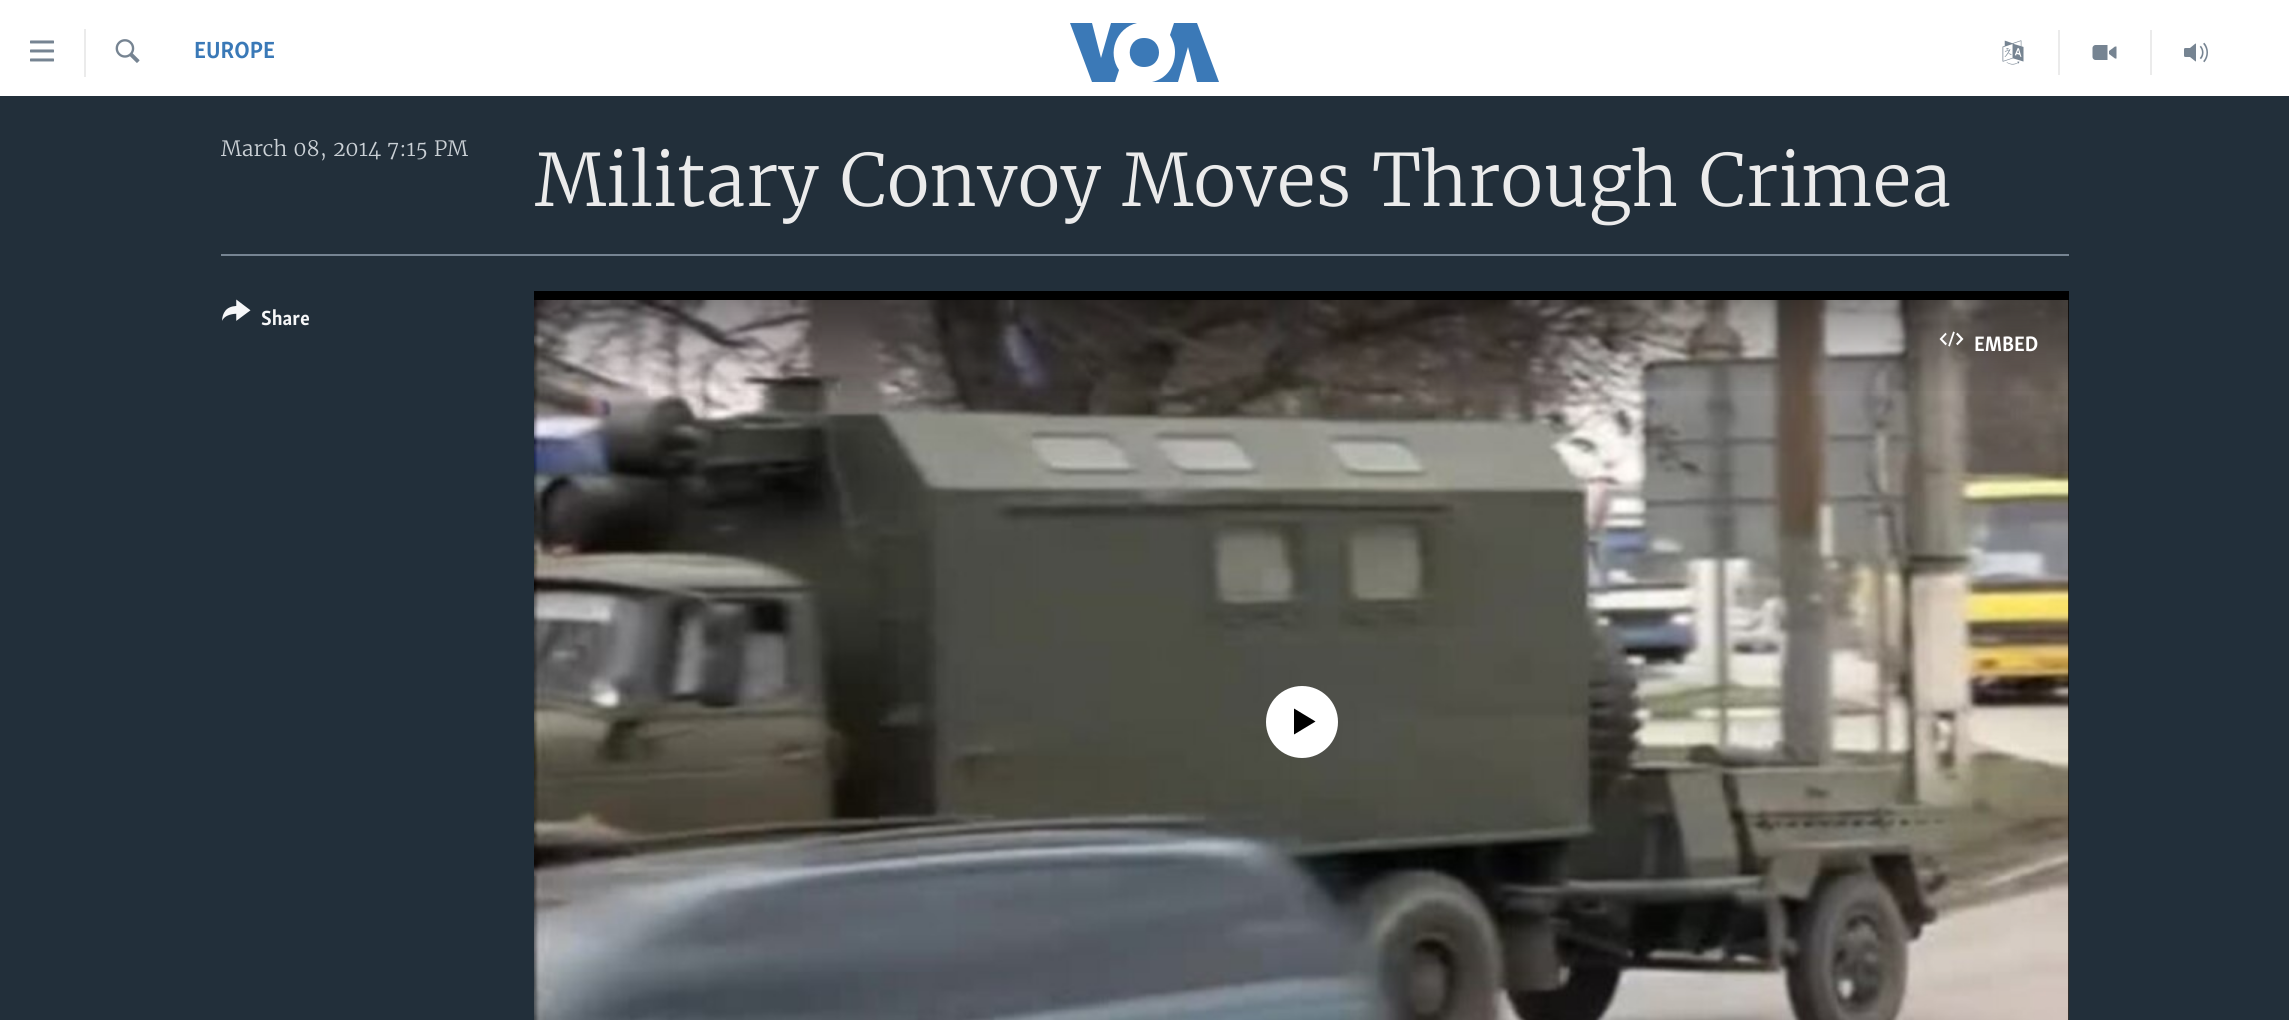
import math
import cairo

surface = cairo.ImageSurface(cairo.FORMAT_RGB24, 2289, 1020)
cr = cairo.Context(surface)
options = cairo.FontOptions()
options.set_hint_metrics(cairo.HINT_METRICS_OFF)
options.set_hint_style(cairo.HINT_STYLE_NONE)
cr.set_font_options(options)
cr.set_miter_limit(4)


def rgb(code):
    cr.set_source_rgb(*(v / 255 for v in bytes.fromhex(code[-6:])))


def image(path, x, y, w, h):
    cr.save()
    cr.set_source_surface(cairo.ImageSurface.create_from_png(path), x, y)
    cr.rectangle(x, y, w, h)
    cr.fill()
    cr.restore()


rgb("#ffffff")
cr.paint()
image("img/1.png", 30, 40, 24, 22)
rgb("#ebebeb")
cr.rectangle(84, 29, 2, 48)
cr.fill()
image("img/2.png", 115, 39, 25, 24)
rgb("#3b79b7")
cr.new_path()
cr.move_to(1119, 70)
cr.line_to(1115, 82)
cr.line_to(1092, 82)
cr.line_to(1070, 23)
cr.line_to(1092, 23)
cr.line_to(1101, 58)
cr.line_to(1111, 23)
cr.line_to(1137, 23)
cr.curve_to(1116, 28, 1107, 53, 1119, 70)
cr.close_path()
cr.move_to(1144, 38)
cr.curve_to(1125, 38, 1125, 67, 1144, 67)
cr.curve_to(1164, 67, 1164, 38, 1144, 38)
cr.close_path()
cr.move_to(1175, 52)
cr.curve_to(1175, 67, 1166, 79, 1152, 82)
cr.line_to(1178, 82)
cr.line_to(1188, 47)
cr.line_to(1197, 82)
cr.line_to(1219, 82)
cr.line_to(1197, 23)
cr.line_to(1174, 23)
cr.line_to(1170, 35)
cr.curve_to(1173, 40, 1175, 46, 1175, 52)
cr.close_path()
cr.fill()
rgb("#ebebeb")
cr.rectangle(2058, 30, 2, 45)
cr.fill()
image("img/3.png", 2002, 40, 22, 25)
cr.rectangle(2150, 30, 2, 45)
cr.fill()
image("img/4.png", 2092, 45, 25, 15)
image("img/5.png", 2184, 42, 24, 21)
rgb("#222f3a")
cr.rectangle(0, 96, 2289, 924)
cr.fill()
rgb("#768492")
cr.rectangle(221, 254, 1848, 2)
cr.fill()
image("img/6.png", 222, 299, 29, 22)
rgb("#000000")
cr.rectangle(534, 291, 1535, 729)
cr.fill()
image("img/7.png", 534, 300, 1535, 720)
gradient = cairo.LinearGradient(1301, 291, 1301, 396)
gradient.add_color_stop_rgba(0, 0, 0, 0, 0.5)
gradient.add_color_stop_rgba(1, 0, 0, 0, 0)
cr.set_source(gradient)
cr.rectangle(534, 300, 1535, 91)
cr.fill()
image("img/8.png", 1939, 331, 25, 16)
rgb("#ffffff")
cr.arc(1302, 722, 36, 0, 2 * math.pi)
cr.fill()
rgb("#000000")
cr.new_path()
cr.move_to(1294, 734.5)
cr.line_to(1315.5, 721.5)
cr.line_to(1294, 708.5)
cr.close_path()
cr.fill()
cr.select_font_face("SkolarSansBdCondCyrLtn", cairo.FONT_SLANT_NORMAL, cairo.FONT_WEIGHT_BOLD)
cr.set_font_size(24)
rgb("#3a79b7")
cr.move_to(194, 58)
cr.show_text("EUROPE")
cr.select_font_face("Merriweather Light")
cr.set_font_size(21)
rgb("#cbd1d6")
cr.move_to(221, 156)
cr.show_text("March 08, 2014 7:15 PM")
cr.set_font_size(72)
rgb("#ebebeb")
cr.move_to(535, 206)
cr.show_text("Military Convoy Moves Through Crimea")
cr.select_font_face("SkolarSansBdCondCyrLtn", cairo.FONT_SLANT_NORMAL, cairo.FONT_WEIGHT_BOLD)
cr.set_font_size(21)
rgb("#f6f7f8")
cr.move_to(261, 325)
cr.show_text("Share")
cr.set_font_size(21.5)
rgb("#ffffff")
cr.move_to(1974, 351)
cr.show_text("EMBED")
surface.write_to_png("page.png")
